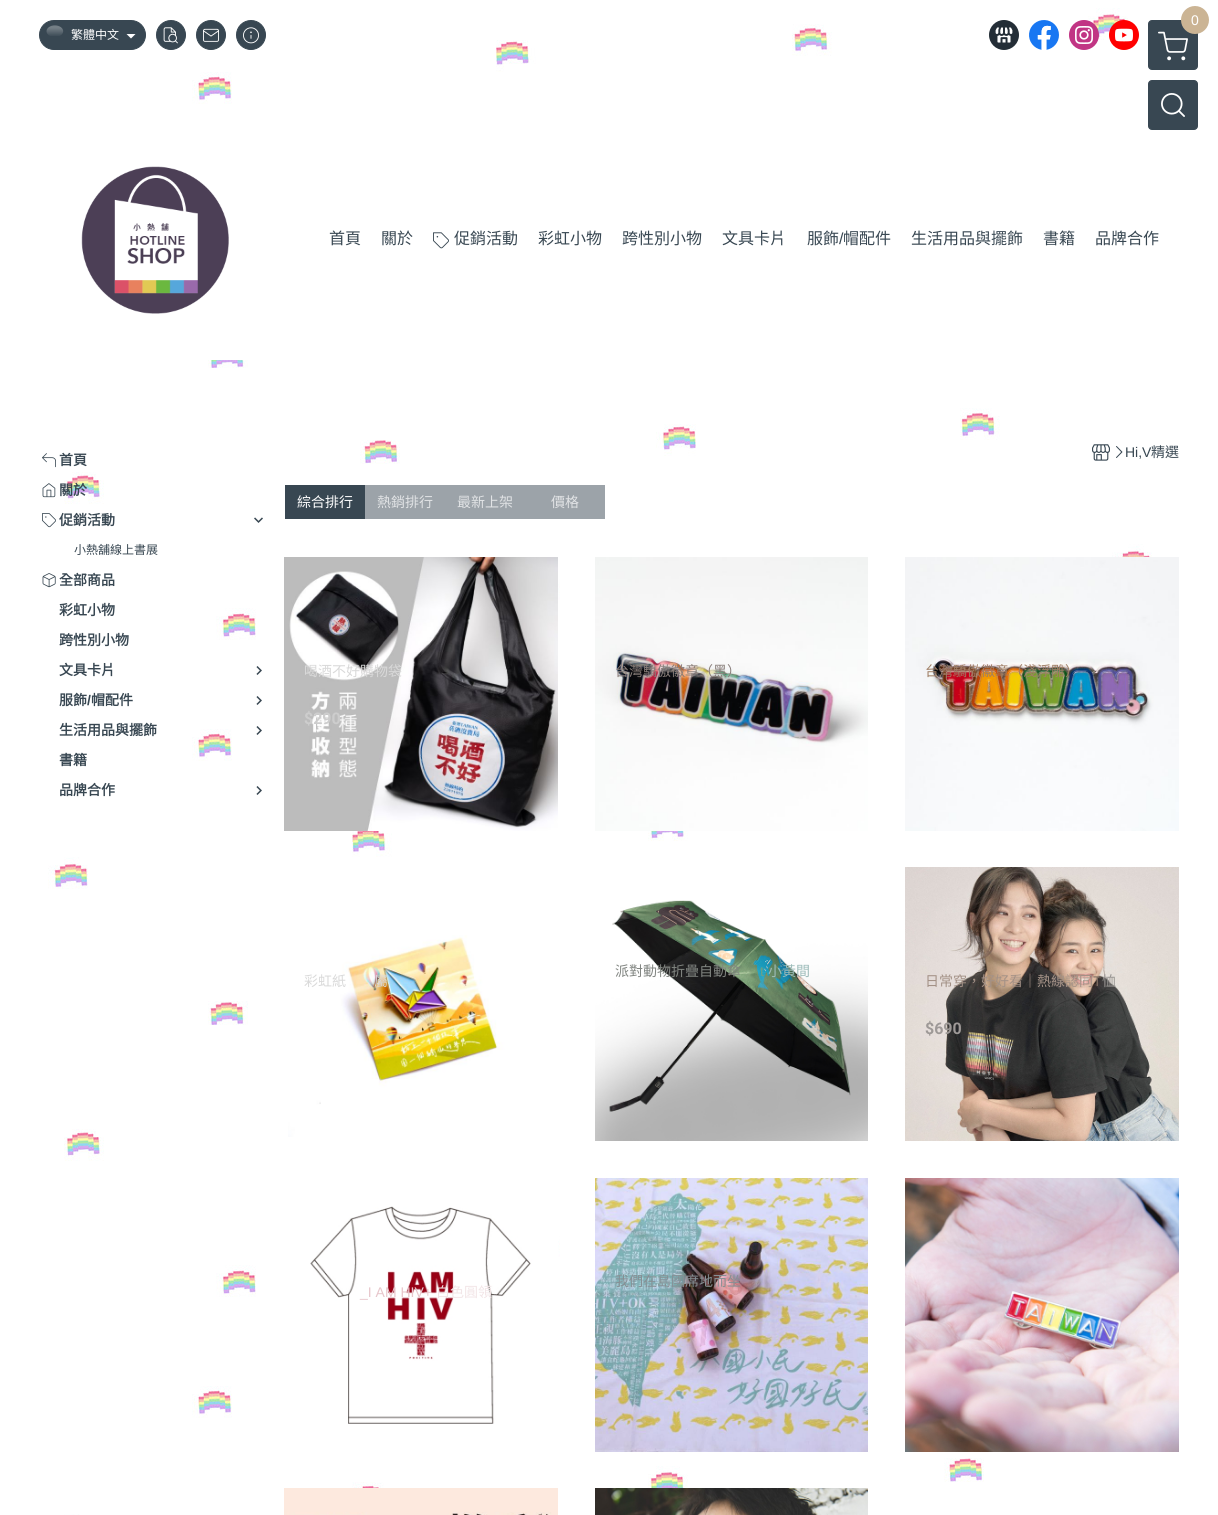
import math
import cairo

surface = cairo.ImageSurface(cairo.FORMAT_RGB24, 1218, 1515)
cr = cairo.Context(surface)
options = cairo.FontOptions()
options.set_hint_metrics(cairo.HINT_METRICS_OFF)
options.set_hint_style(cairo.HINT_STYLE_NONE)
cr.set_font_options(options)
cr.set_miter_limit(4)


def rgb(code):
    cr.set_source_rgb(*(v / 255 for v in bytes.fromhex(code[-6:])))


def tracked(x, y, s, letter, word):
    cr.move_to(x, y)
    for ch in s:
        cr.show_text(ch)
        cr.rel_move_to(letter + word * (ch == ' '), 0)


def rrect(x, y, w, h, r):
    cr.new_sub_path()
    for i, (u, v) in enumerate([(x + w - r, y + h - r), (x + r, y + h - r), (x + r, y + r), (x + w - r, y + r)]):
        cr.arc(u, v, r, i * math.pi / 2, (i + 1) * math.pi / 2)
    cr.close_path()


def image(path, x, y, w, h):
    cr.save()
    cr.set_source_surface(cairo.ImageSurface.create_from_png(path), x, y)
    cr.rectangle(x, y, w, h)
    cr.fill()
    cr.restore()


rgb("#ffffff")
cr.paint()
image("img/1.png", 0, 0, 1218, 1515)
rgb("#384752")
rrect(1148.5, 20.5, 49, 49, 3.5)
cr.fill_preserve()
cr.set_line_width(1)
cr.stroke()
image("img/2.png", 1158, 31, 30, 30)
rgb("#cbb494")
cr.arc(1195, 20, 14, 0, 2 * math.pi)
cr.fill()
rgb("#384752")
rrect(1148.5, 80.5, 49, 49, 3.5)
cr.fill_preserve()
cr.stroke()
image("img/3.png", 1161, 93, 24, 24)
rrect(39.5, 20.5, 106, 29, 14.5)
cr.fill_preserve()
cr.stroke()
image("img/4.png", 46, 25, 18, 11)
rgb("#ffffff")
cr.new_path()
cr.move_to(126.5, 34)
cr.line_to(135.5, 34)
cr.line_to(131, 38.5)
cr.close_path()
cr.fill()
rgb("#384752")
cr.arc(171, 35, 14.5, 0, 2 * math.pi)
cr.fill_preserve()
cr.stroke()
image("img/5.png", 163, 27, 15, 17)
cr.arc(211, 35, 14.5, 0, 2 * math.pi)
cr.fill_preserve()
cr.stroke()
image("img/6.png", 203, 28, 16, 14)
cr.arc(251, 35, 14.5, 0, 2 * math.pi)
cr.fill_preserve()
cr.stroke()
image("img/7.png", 243, 27, 16, 17)
image("img/8.png", 989, 20, 30, 30)
image("img/9.png", 1029, 20, 30, 30)
image("img/10.png", 1069, 20, 30, 30)
image("img/11.png", 1109, 20, 30, 30)
rgb("#ffffff")
cr.rectangle(48, 144, 1096, 216)
cr.fill()
image("img/12.png", 81, 166, 148, 148)
image("img/13.png", 433, 232, 16, 17)
image("img/14.png", 42, 453, 14, 15)
image("img/15.png", 42, 483, 14, 15)
image("img/16.png", 42, 513, 14, 15)
image("img/17.png", 254, 517, 9, 6)
image("img/18.png", 42, 573, 14, 15)
image("img/19.png", 256, 666, 6, 9)
image("img/19.png", 256, 696, 6, 9)
image("img/19.png", 256, 726, 6, 9)
image("img/19.png", 256, 786, 6, 9)
image("img/20.png", 1092, 444, 18, 17)
image("img/21.png", 1116, 446, 7, 12)
rgb("#384752")
cr.rectangle(285, 485, 80, 34)
cr.fill()
rgb("#9ca3a9")
cr.rectangle(365, 485, 240, 34)
cr.fill()
image("img/22.png", 284, 557, 274, 274)
image("img/23.png", 595, 557, 273, 274)
image("img/24.png", 905, 557, 274, 274)
image("img/25.png", 595, 900, 273, 241)
image("img/26.png", 288, 935, 256, 202)
image("img/27.png", 905, 867, 274, 274)
image("img/28.png", 595, 1178, 273, 274)
image("img/29.png", 905, 1178, 274, 274)
image("img/30.png", 310, 1206, 248, 218)
image("img/31.png", 284, 1488, 274, 27)
image("img/32.png", 595, 1488, 273, 27)
cr.select_font_face("Liberation Sans")
cr.set_font_size(14)
rgb("#ffffff")
tracked(1191, 25, "0", 1, 0)
cr.select_font_face("Noto Sans CJK TC")
cr.set_font_size(12)
cr.move_to(71, 39)
cr.show_text("繁體中文")
cr.set_font_size(16)
rgb("#384752")
for x, y, s in [
    (329, 244, "首頁"),
    (381, 244, "關於"),
    (454, 244, "促銷活動"),
    (538, 244, "彩虹小物"),
    (622, 244, "跨性別小物"),
    (722, 244, "文具卡片"),
    (807, 244, "服飾"),
]:
    cr.move_to(x, y)
    cr.show_text(s)
cr.select_font_face("Liberation Sans")
cr.move_to(839, 244)
cr.show_text("/")
cr.select_font_face("Noto Sans CJK TC")
for x, y, s in [
    (843, 244, "帽配件"),
    (911, 244, "生活用品與擺飾"),
    (1043, 244, "書籍"),
    (1095, 244, "品牌合作"),
]:
    cr.move_to(x, y)
    cr.show_text(s)
cr.select_font_face("Noto Sans CJK TC", cairo.FONT_SLANT_NORMAL, cairo.FONT_WEIGHT_BOLD)
cr.set_font_size(14)
for x, y, s in [
    (59, 465, "首頁"),
    (59, 495, "關於"),
    (59, 525, "促銷活動"),
]:
    cr.move_to(x, y)
    cr.show_text(s)
cr.select_font_face("Noto Sans CJK TC")
cr.set_font_size(12)
cr.move_to(74, 554)
cr.show_text("小熱舖線上書展")
cr.select_font_face("Noto Sans CJK TC", cairo.FONT_SLANT_NORMAL, cairo.FONT_WEIGHT_BOLD)
cr.set_font_size(14)
for x, y, s in [
    (59, 585, "全部商品"),
    (59, 615, "彩虹小物"),
    (59, 645, "跨性別小物"),
    (59, 675, "文具卡片"),
    (59, 705, "服飾"),
]:
    cr.move_to(x, y)
    cr.show_text(s)
cr.select_font_face("Liberation Sans", cairo.FONT_SLANT_NORMAL, cairo.FONT_WEIGHT_BOLD)
cr.move_to(87, 705)
cr.show_text("/")
cr.select_font_face("Noto Sans CJK TC", cairo.FONT_SLANT_NORMAL, cairo.FONT_WEIGHT_BOLD)
for x, y, s in [
    (91, 705, "帽配件"),
    (59, 735, "生活用品與擺飾"),
    (59, 765, "書籍"),
    (59, 795, "品牌合作"),
]:
    cr.move_to(x, y)
    cr.show_text(s)
cr.select_font_face("Liberation Sans")
cr.move_to(1125, 457)
cr.show_text("Hi,V")
cr.select_font_face("Noto Sans CJK TC")
cr.move_to(1151, 457)
cr.show_text("精選")
rgb("#ffffff")
cr.move_to(297, 507)
cr.show_text("綜合排行")
rgb("#e1e3e5")
for x, y, s in [
    (377, 507, "熱銷排行"),
    (457, 507, "最新上架"),
    (551, 507, "價格"),
]:
    cr.move_to(x, y)
    cr.show_text(s)
rgb("#d9d9d9")
cr.move_to(304, 676)
cr.show_text("喝酒不好購物袋")
cr.select_font_face("Roboto", cairo.FONT_SLANT_NORMAL, cairo.FONT_WEIGHT_BOLD)
cr.set_font_size(16)
rgb("#cdcdcd")
cr.move_to(304, 724)
cr.show_text("$290")
cr.select_font_face("Noto Sans CJK TC")
cr.set_font_size(14)
rgb("#897e7a")
cr.move_to(615, 676)
cr.show_text("台灣驕傲徽章（黑）")
rgb("#9f7e65")
cr.move_to(925, 676)
cr.show_text("台灣驕傲徽章（淺浮雕）")
rgb("#818581")
cr.move_to(615, 976)
cr.show_text("派對動物折疊自動傘")
cr.select_font_face("Liberation Sans")
rgb("#68a089")
cr.move_to(760, 976)
cr.show_text("t")
cr.select_font_face("Noto Sans CJK TC")
rgb("#9dbcba")
cr.move_to(768, 976)
cr.show_text("小黃間")
rgb("#d9d9d9")
cr.move_to(304, 986)
cr.show_text("彩虹紙")
cr.move_to(374, 986)
cr.show_text("屬")
rgb("#a39186")
cr.move_to(925, 986)
cr.show_text("日常穿，好好看｜熱線認同")
cr.select_font_face("Liberation Sans")
rgb("#7d6c60")
cr.move_to(1093, 986)
cr.show_text("T")
cr.select_font_face("Noto Sans CJK TC")
rgb("#989592")
cr.move_to(1102, 986)
cr.show_text("恤")
cr.select_font_face("Roboto", cairo.FONT_SLANT_NORMAL, cairo.FONT_WEIGHT_BOLD)
cr.set_font_size(16)
rgb("#9e9997")
cr.move_to(925, 1034)
cr.show_text("$690")
cr.select_font_face("Noto Sans CJK TC")
cr.set_font_size(14)
rgb("#868f94")
cr.move_to(615, 1286)
cr.show_text("我們在島國席地而坐")
cr.select_font_face("Liberation Sans")
rgb("#e7c6cb")
cr.move_to(360, 1297)
cr.show_text("_I AM HIV+")
cr.select_font_face("Noto Sans CJK TC")
rgb("#f2e5e7")
cr.move_to(436, 1297)
cr.show_text("白色圓領")
surface.write_to_png("page.png")
